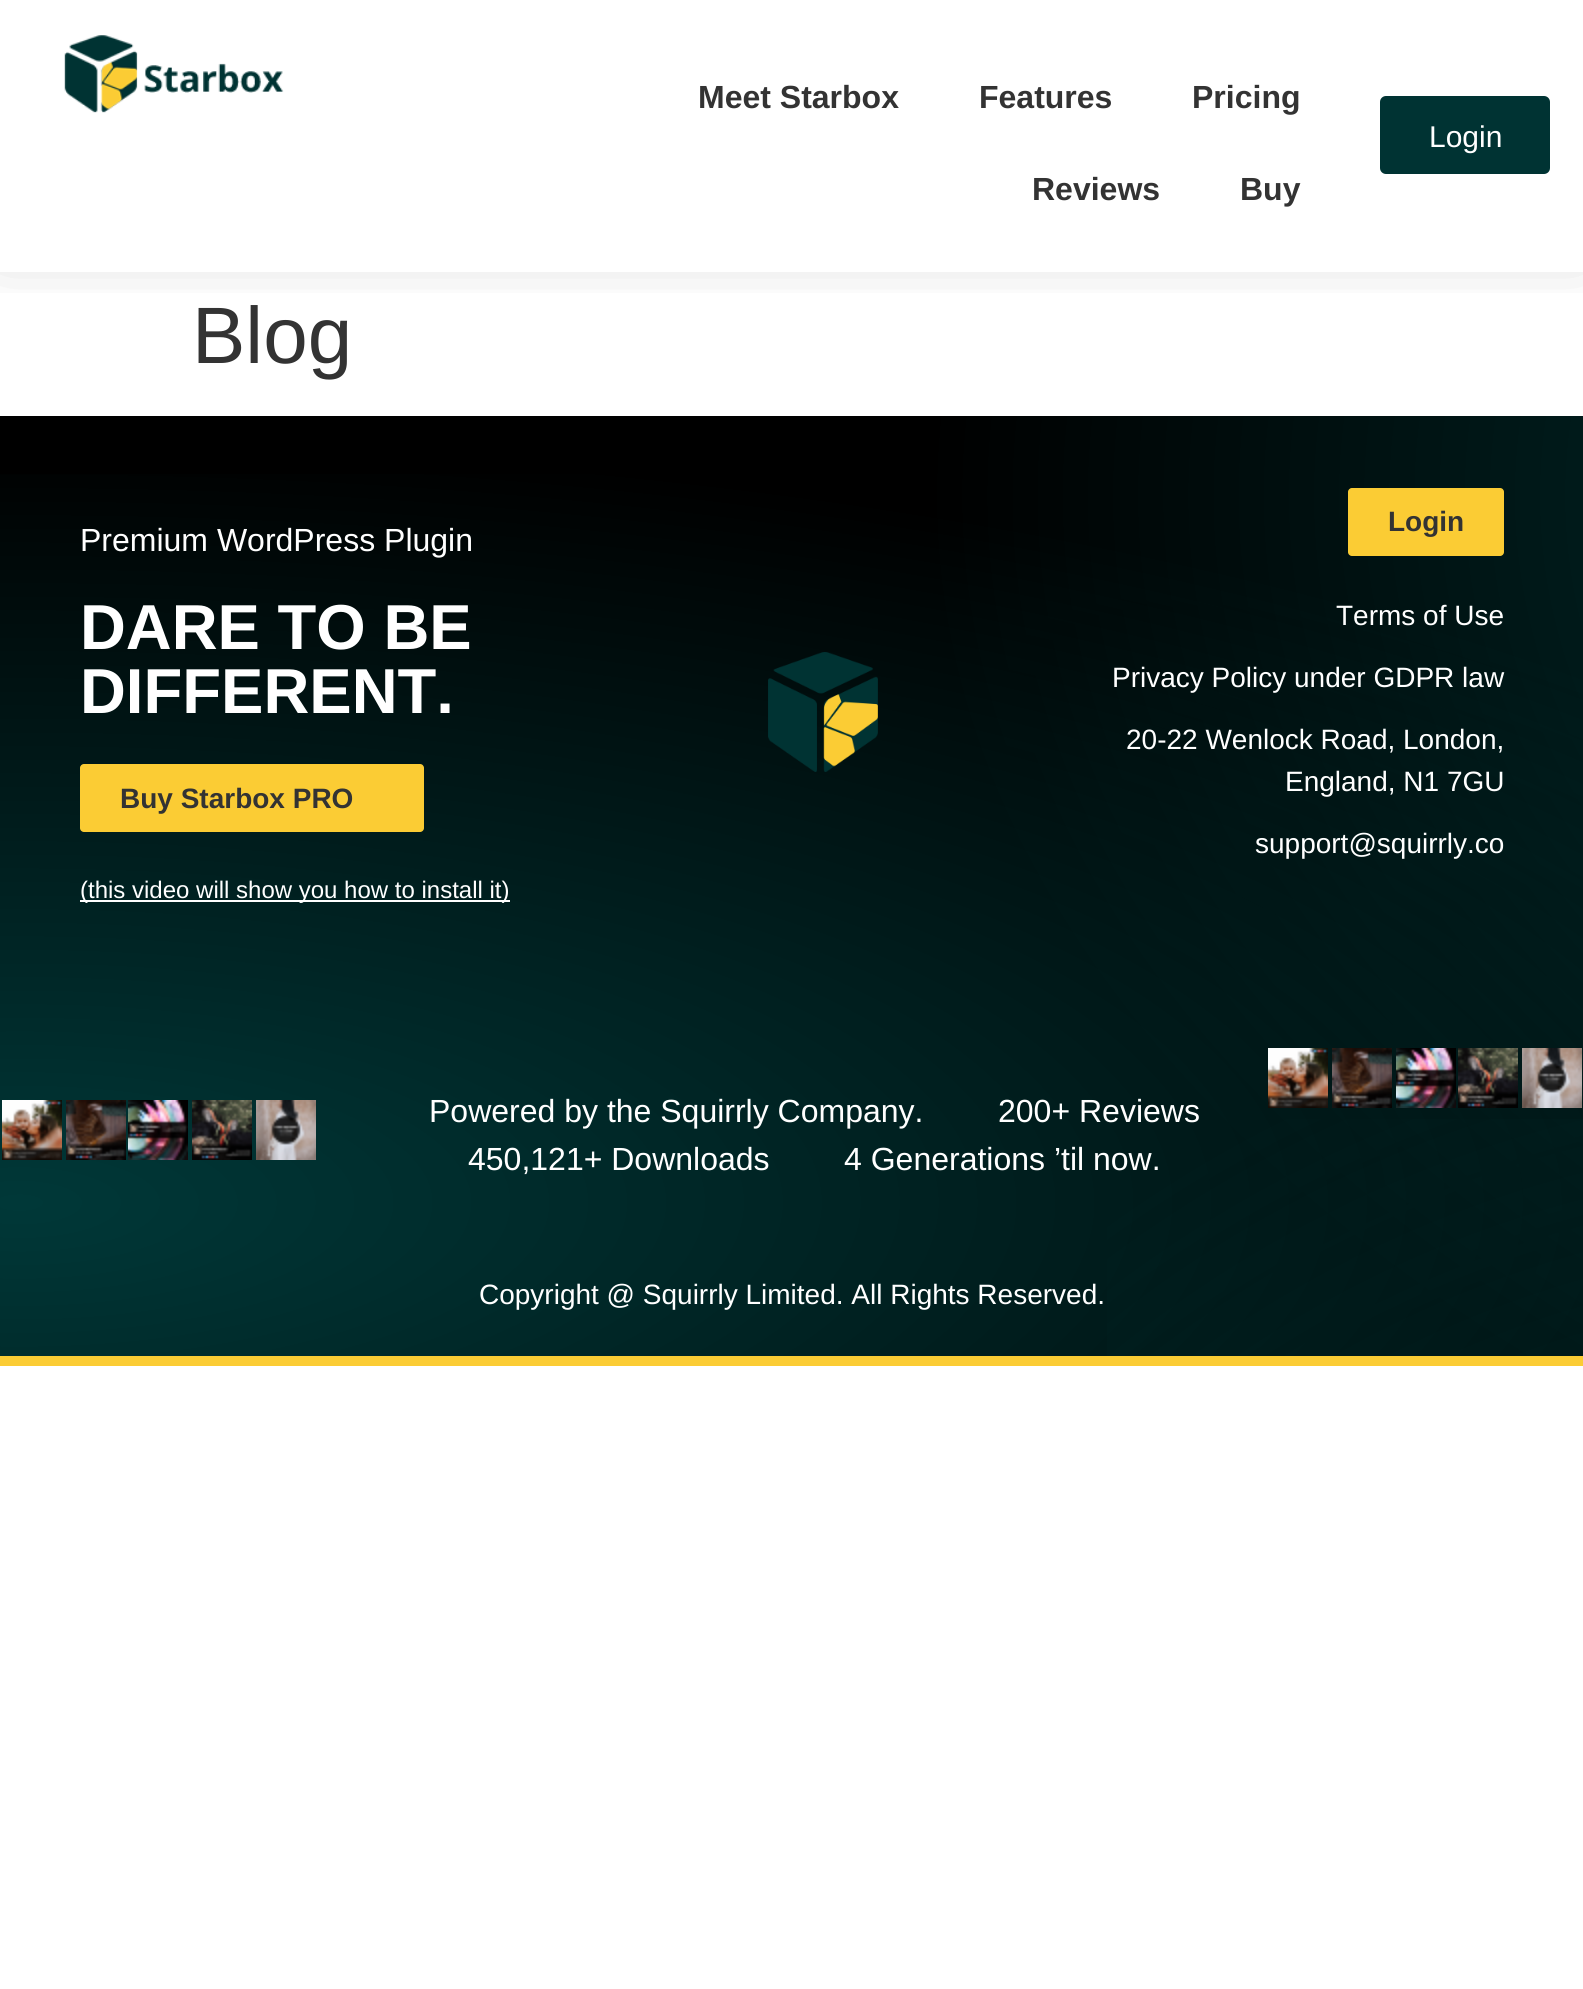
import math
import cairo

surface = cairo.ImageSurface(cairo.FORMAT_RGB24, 1583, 1989)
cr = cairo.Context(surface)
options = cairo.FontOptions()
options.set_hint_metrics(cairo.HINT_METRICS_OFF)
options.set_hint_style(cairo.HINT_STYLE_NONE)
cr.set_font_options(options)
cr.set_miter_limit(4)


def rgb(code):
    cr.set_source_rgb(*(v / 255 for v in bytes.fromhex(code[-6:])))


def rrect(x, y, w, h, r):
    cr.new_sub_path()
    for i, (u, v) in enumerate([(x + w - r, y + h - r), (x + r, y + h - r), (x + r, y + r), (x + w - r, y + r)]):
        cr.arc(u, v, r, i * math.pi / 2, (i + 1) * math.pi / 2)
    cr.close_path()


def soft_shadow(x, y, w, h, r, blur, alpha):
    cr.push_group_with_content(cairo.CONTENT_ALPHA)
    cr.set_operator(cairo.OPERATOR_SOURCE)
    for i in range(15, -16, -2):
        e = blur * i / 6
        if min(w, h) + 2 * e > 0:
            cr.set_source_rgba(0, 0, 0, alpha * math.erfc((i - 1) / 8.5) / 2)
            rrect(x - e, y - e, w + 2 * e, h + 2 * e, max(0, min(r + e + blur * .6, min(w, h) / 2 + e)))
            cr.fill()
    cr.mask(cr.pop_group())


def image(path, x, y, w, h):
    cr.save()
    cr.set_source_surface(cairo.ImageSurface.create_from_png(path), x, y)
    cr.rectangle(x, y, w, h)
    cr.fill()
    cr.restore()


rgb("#ffffff")
cr.paint()
cr.save()
cr.rectangle(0, 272, 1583, 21)
cr.clip()
rgb("#000000")
soft_shadow(0, -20, 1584, 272, 0, 32, 0.2)
cr.restore()
image("img/1.png", 64, 35, 220, 78)
rgb("#003333")
rrect(1380, 96, 170, 78, 6)
cr.fill()
gradient = cairo.RadialGradient(0, 0, 0, 0, 0, 1)
gradient.set_matrix(cairo.Matrix(1 / 4480, 0, 0, 1 / 2552, -1 * 3168 / 4480, -1 * 491 / 2552))
gradient.add_color_stop_rgba(0, 0, 0.341, 0.341, 1)
gradient.add_color_stop_rgba(0.5, 0, 0, 0, 1)
cr.set_source(gradient)
cr.rectangle(0, 416, 1583, 940)
cr.fill()
gradient = cairo.RadialGradient(0, 0, 0, 0, 0, 1)
gradient.set_matrix(cairo.Matrix(1 / 4480, 0, 0, 1 / 1542, -1 * 0 / 4480, -1 * 1206 / 1542))
gradient.add_color_stop_rgba(0, 0, 0.22, 0.22, 1)
gradient.add_color_stop_rgba(0.5, 0, 0.22, 0.22, 0)
cr.set_source(gradient)
cr.rectangle(0, 474, 1583, 882)
cr.fill()
gradient = cairo.RadialGradient(0, 0, 0, 0, 0, 1)
gradient.set_matrix(cairo.Matrix(1 / 2643, 0, 0, 1 / 2659, -1 * 1869 / 2643, -1 * 2296 / 2659))
gradient.add_color_stop_rgba(0, 0, 0.2, 0.2, 1)
gradient.add_color_stop_rgba(0.5, 0, 0.2, 0.2, 0)
cr.set_source(gradient)
cr.rectangle(1107, 1119, 476, 237)
cr.fill()
rgb("#fbcc34")
cr.rectangle(0, 1356, 1583, 10)
cr.fill()
gradient = cairo.LinearGradient(80, 798, 1456, 798)
gradient.add_color_stop_rgba(0, 0.984, 0.8, 0.204, 1)
gradient.add_color_stop_rgba(0.25, 0.984, 0.8, 0.204, 1)
gradient.add_color_stop_rgba(0.5, 0, 0.2, 0.2, 1)
gradient.add_color_stop_rgba(0.75, 0, 0.2, 0.2, 1)
gradient.add_color_stop_rgba(1, 0.984, 0.8, 0.204, 1)
cr.set_source(gradient)
rrect(80, 764, 344, 68, 4)
cr.fill()
rgb("#ffffff")
cr.rectangle(80, 900, 430, 2)
cr.fill()
image("img/2.png", 768, 652, 110, 120)
rgb("#fbcc34")
rrect(1348, 488, 156, 68, 4)
cr.fill()
image("img/3.png", 1268, 1048, 60, 60)
image("img/4.png", 1332, 1048, 60, 60)
image("img/5.png", 1396, 1048, 60, 60)
image("img/6.png", 1458, 1048, 60, 60)
image("img/7.png", 1522, 1048, 60, 60)
image("img/3.png", 2, 1100, 60, 60)
image("img/4.png", 66, 1100, 60, 60)
image("img/5.png", 128, 1100, 60, 60)
image("img/6.png", 192, 1100, 60, 60)
image("img/7.png", 256, 1100, 60, 60)
cr.select_font_face("Liberation Sans", cairo.FONT_SLANT_NORMAL, cairo.FONT_WEIGHT_BOLD)
cr.set_font_size(32)
rgb("#333333")
for x, y, s in [
    (698, 108, "Meet Starbox"),
    (979, 108, "Features"),
    (1192, 108, "Pricing"),
    (1032, 200, "Reviews"),
    (1240, 200, "Buy"),
]:
    cr.move_to(x, y)
    cr.show_text(s)
cr.select_font_face("Liberation Sans")
cr.set_font_size(30)
rgb("#ffffff")
cr.move_to(1429, 147)
cr.show_text("Login")
cr.set_font_size(80)
rgb("#333333")
cr.move_to(192, 363)
cr.show_text("Blog")
cr.set_font_size(32)
rgb("#ffffff")
cr.move_to(80, 551)
cr.show_text("Premium WordPress Plugin")
cr.select_font_face("Liberation Sans", cairo.FONT_SLANT_NORMAL, cairo.FONT_WEIGHT_BOLD)
cr.set_font_size(63.5)
cr.move_to(80, 649)
cr.show_text("DARE TO BE")
cr.move_to(80, 713)
cr.show_text("DIFFERENT.")
cr.set_font_size(28)
rgb("#333333")
cr.move_to(120, 808)
cr.show_text("Buy Starbox PRO")
cr.select_font_face("Liberation Sans")
cr.set_font_size(24)
rgb("#ffffff")
cr.move_to(80, 898)
cr.show_text("(this video will show you how to install it)")
cr.select_font_face("Liberation Sans", cairo.FONT_SLANT_NORMAL, cairo.FONT_WEIGHT_BOLD)
cr.set_font_size(28)
rgb("#333333")
cr.move_to(1388, 531)
cr.show_text("Login")
cr.select_font_face("Liberation Sans")
rgb("#ffffff")
for x, y, s in [
    (1336, 625, "Terms of Use"),
    (1112, 687, "Privacy Policy under GDPR law"),
    (1126, 749, "20-22 Wenlock Road, London,"),
    (1285, 791, "England, N1 7GU"),
    (1255, 853, "support@squirrly.co"),
]:
    cr.move_to(x, y)
    cr.show_text(s)
cr.set_font_size(32)
for x, y, s in [
    (429, 1122, "Powered by the Squirrly Company."),
    (998, 1122, "200+ Reviews"),
    (468, 1170, "450,121+ Downloads"),
    (844, 1170, "4 Generations ’til now."),
]:
    cr.move_to(x, y)
    cr.show_text(s)
cr.set_font_size(28)
cr.move_to(479, 1304)
cr.show_text("Copyright @ Squirrly Limited. All Rights Reserved.")
surface.write_to_png("page.png")
